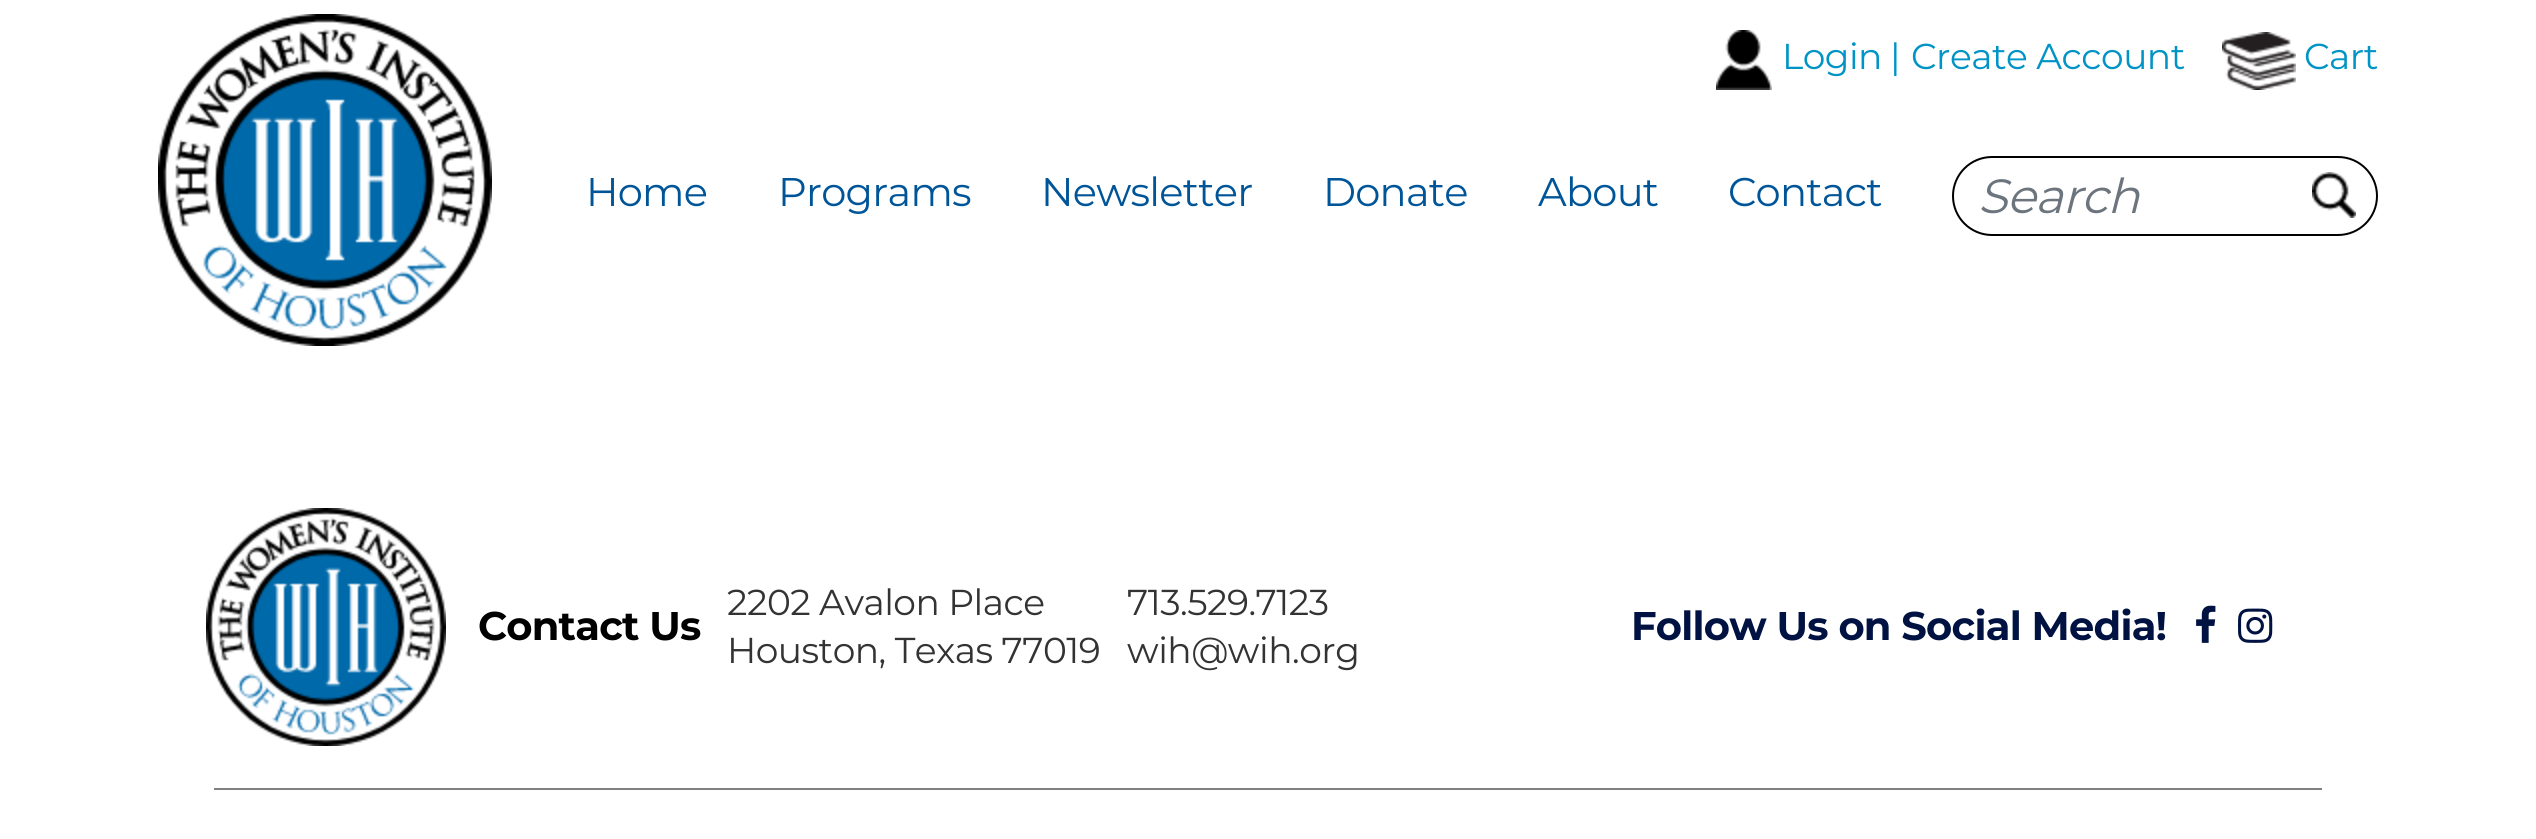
import math
import cairo

surface = cairo.ImageSurface(cairo.FORMAT_RGB24, 2536, 839)
cr = cairo.Context(surface)
options = cairo.FontOptions()
options.set_hint_metrics(cairo.HINT_METRICS_OFF)
options.set_hint_style(cairo.HINT_STYLE_NONE)
cr.set_font_options(options)
cr.set_miter_limit(4)


def rgb(code):
    cr.set_source_rgb(*(v / 255 for v in bytes.fromhex(code[-6:])))


def tracked(x, y, s, letter, word):
    cr.move_to(x, y)
    for ch in s:
        cr.show_text(ch)
        cr.rel_move_to(letter + word * (ch == ' '), 0)


def rrect(x, y, w, h, r):
    cr.new_sub_path()
    for i, (u, v) in enumerate([(x + w - r, y + h - r), (x + r, y + h - r), (x + r, y + r), (x + w - r, y + r)]):
        cr.arc(u, v, r, i * math.pi / 2, (i + 1) * math.pi / 2)
    cr.close_path()


def image(path, x, y, w, h):
    cr.save()
    cr.set_source_surface(cairo.ImageSurface.create_from_png(path), x, y)
    cr.rectangle(x, y, w, h)
    cr.fill()
    cr.restore()


rgb("#ffffff")
cr.paint()
image("img/1.png", 1716, 30, 56, 60)
image("img/2.png", 2222, 32, 74, 58)
image("img/3.png", 158, 14, 334, 332)
image("img/4.png", 2312, 172, 44, 46)
rrect(1953, 157, 424, 78, 39)
rgb("#000000")
cr.stroke()
image("img/5.png", 206, 508, 240, 238)
image("img/6.png", 2196, 605, 20, 38)
image("img/7.png", 2238, 608, 35, 35)
rgb("#808080")
cr.rectangle(214, 788, 2108, 2)
cr.fill()
cr.select_font_face("Montserrat")
cr.set_font_size(36)
rgb("#0094c6")
tracked(1782, 69, "Login", -0.5, 0)
tracked(1890, 69, "|", 1, 0)
tracked(1911, 69, "Create Account", -0.5, 0)
tracked(2304, 69, "Cart", -0.5, 0)
cr.set_font_size(40)
rgb("#005598")
for x, y, s in [
    (586, 206, "Home"),
    (778, 206, "Programs"),
    (1041, 206, "Newsletter"),
    (1323, 206, "Donate"),
    (1538, 206, "About"),
    (1728, 206, "Contact"),
]:
    tracked(x, y, s, -0.75, 0)
cr.select_font_face("Montserrat", cairo.FONT_SLANT_ITALIC)
cr.set_font_size(48)
rgb("#6c757d")
tracked(1978, 213, "Search", -0.75, 0)
cr.select_font_face("Montserrat", cairo.FONT_SLANT_NORMAL, cairo.FONT_WEIGHT_BOLD)
cr.set_font_size(40)
rgb("#000000")
tracked(478, 640, "Contact Us", -0.75, 0)
cr.select_font_face("Montserrat")
cr.set_font_size(36)
rgb("#333333")
for x, y, s in [
    (727, 615, "2202 Avalon Place"),
    (727, 663, "Houston, Texas 77019"),
    (1127, 615, "713.529.7123"),
    (1127, 663, "wih@wih.org"),
]:
    tracked(x, y, s, -0.5, 0)
cr.select_font_face("Montserrat", cairo.FONT_SLANT_NORMAL, cairo.FONT_WEIGHT_BOLD)
cr.set_font_size(40)
rgb("#001242")
tracked(1631, 640, "Follow Us on Social Media!", -0.75, 0)
surface.write_to_png("page.png")
